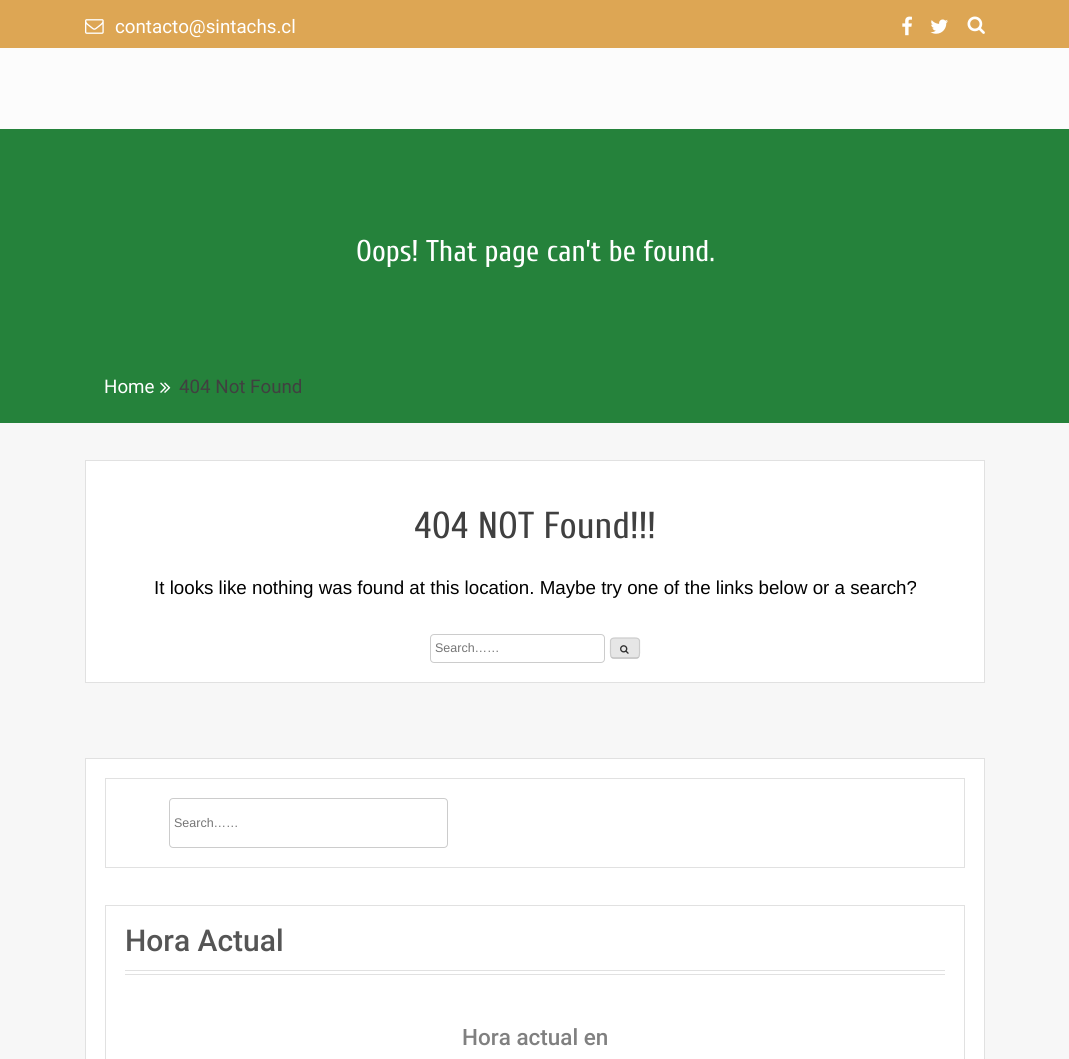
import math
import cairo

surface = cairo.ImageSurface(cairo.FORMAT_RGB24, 1069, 1059)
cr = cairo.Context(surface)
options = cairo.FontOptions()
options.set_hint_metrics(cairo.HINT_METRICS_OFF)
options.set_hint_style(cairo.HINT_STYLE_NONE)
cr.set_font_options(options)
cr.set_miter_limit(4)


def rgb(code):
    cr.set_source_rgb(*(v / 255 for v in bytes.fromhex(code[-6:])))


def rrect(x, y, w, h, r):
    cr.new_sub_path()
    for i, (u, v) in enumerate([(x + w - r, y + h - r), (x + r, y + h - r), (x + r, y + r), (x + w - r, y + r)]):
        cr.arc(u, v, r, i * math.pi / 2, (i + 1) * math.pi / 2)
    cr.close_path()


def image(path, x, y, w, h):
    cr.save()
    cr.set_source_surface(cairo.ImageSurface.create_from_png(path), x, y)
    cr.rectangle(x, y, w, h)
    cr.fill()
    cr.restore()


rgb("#fcfcfc")
cr.paint()
rgb("#dda654")
cr.rectangle(0, 0, 1069, 48)
cr.fill()
image("img/1.png", 85, 19, 19, 15)
image("img/2.png", 902, 16, 10, 20)
image("img/3.png", 930, 19, 18, 15)
image("img/4.png", 967, 16, 18, 18)
rgb("#25823b")
cr.rectangle(0, 129, 1069, 294)
cr.fill()
image("img/5.png", 160, 382, 11, 11)
rgb("#f7f7f7")
cr.rectangle(0, 423, 1069, 636)
cr.fill()
rgb("#ffffff")
cr.rectangle(85.5, 460.5, 899, 222)
cr.fill_preserve()
rgb("#e1e1e1")
cr.set_line_width(1)
cr.stroke()
rrect(430.5, 634.5, 174, 28, 3.5)
rgb("#cccccc")
cr.stroke()
rgb("#e6e6e6")
rrect(610, 638, 30, 21, 4)
cr.fill()
cr.new_path()
cr.move_to(638.5, 657)
cr.curve_to(638, 658, 637, 658, 636, 658)
cr.line_to(614, 658)
cr.curve_to(613, 658, 612, 658, 611.5, 657)
rgb("#bbbbbb")
cr.set_line_width(1.2)
cr.stroke()
cr.new_path()
cr.move_to(611.5, 657)
cr.curve_to(610, 655.5, 610.5, 650, 610.5, 648)
cr.line_to(610.5, 640.5)
cr.curve_to(611.5, 637.5, 615, 638, 617.5, 638)
cr.line_to(632.5, 638)
cr.curve_to(635, 638, 638.5, 637.5, 639.5, 640.5)
cr.line_to(639.5, 648)
cr.curve_to(639.5, 650, 640, 655.5, 638.5, 657)
rgb("#cccccc")
cr.stroke()
image("img/6.png", 620, 645, 9, 9)
rgb("#ffffff")
cr.rectangle(85.5, 758.5, 899, 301)
cr.fill_preserve()
rgb("#e1e1e1")
cr.set_line_width(1)
cr.stroke()
cr.rectangle(105.5, 778.5, 859, 89)
cr.stroke()
rrect(169.5, 798.5, 278, 49, 3.5)
rgb("#cccccc")
cr.stroke()
cr.rectangle(105.5, 905.5, 859, 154)
rgb("#e1e1e1")
cr.stroke()
cr.rectangle(125, 970, 820, 1)
cr.fill()
cr.rectangle(125, 974, 820, 1)
cr.fill()
cr.select_font_face("Roboto")
cr.set_font_size(18.75)
rgb("#ffffff")
cr.move_to(115, 33)
cr.show_text("contacto@sintachs.cl")
cr.select_font_face("Cuprum")
cr.set_font_size(30)
cr.move_to(356, 261)
cr.show_text("Oops! That page can’t be found.")
cr.select_font_face("Roboto")
cr.set_font_size(18.75)
cr.move_to(104, 393)
cr.show_text("Home")
rgb("#404040")
cr.move_to(179, 393)
cr.show_text("404 Not Found")
cr.select_font_face("Cuprum")
cr.set_font_size(37.5)
cr.move_to(414, 538)
cr.show_text("404 NOT Found!!!")
cr.select_font_face("Liberation Sans")
cr.set_font_size(18.75)
rgb("#000000")
cr.move_to(154, 594)
cr.show_text("It looks like nothing was found at this location. Maybe try one of the links below or a search?")
cr.set_font_size(12.5)
rgb("#757575")
cr.move_to(435, 652)
cr.show_text("Search……")
cr.move_to(174, 827)
cr.show_text("Search……")
cr.select_font_face("Roboto Medium")
cr.set_font_size(30)
rgb("#555555")
cr.move_to(125, 951)
cr.show_text("Hora Actual")
cr.set_font_size(22.5)
rgb("#808080")
cr.move_to(462, 1045)
cr.show_text("Hora actual en")
surface.write_to_png("page.png")
